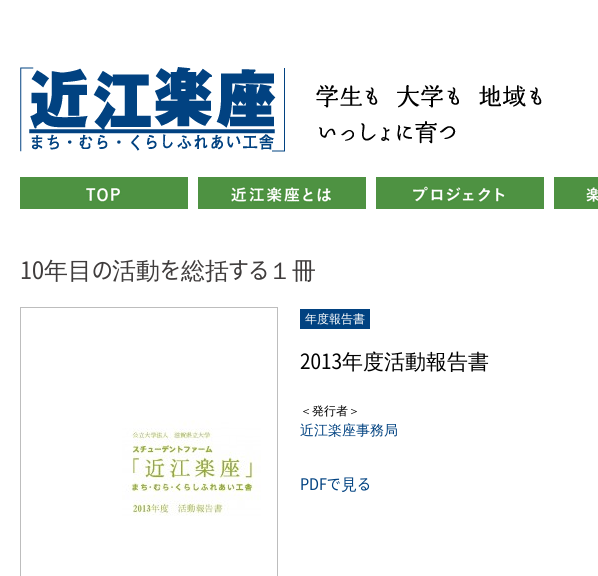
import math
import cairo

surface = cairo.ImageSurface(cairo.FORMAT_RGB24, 598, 576)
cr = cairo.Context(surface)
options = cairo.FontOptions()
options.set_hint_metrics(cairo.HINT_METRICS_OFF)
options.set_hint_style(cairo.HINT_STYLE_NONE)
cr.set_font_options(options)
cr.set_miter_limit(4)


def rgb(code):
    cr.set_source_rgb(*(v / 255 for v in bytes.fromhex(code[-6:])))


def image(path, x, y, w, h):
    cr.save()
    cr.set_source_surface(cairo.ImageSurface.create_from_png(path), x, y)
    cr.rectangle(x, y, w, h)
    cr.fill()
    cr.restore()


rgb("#ffffff")
cr.paint()
image("img/1.png", 20, 67, 265, 85)
image("img/2.png", 316, 85, 226, 59)
image("img/3.png", 20, 177, 168, 32)
image("img/4.png", 198, 177, 168, 32)
image("img/5.png", 376, 177, 168, 32)
image("img/6.png", 554, 177, 44, 32)
cr.rectangle(20.5, 307.5, 257, 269)
rgb("#bdbdbd")
cr.set_line_width(1)
cr.stroke()
image("img/7.png", 122, 420, 139, 96)
rgb("#014281")
cr.rectangle(300, 309, 70, 20)
cr.fill()
cr.select_font_face("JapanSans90")
cr.set_font_size(24)
rgb("#3f3c3c")
cr.move_to(20, 279)
cr.show_text("10")
cr.select_font_face("WenQuanYi Zen Hei Medium")
cr.move_to(44, 279)
cr.show_text("年目")
cr.select_font_face("JapanSans90")
cr.move_to(92, 279)
cr.show_text("の")
cr.select_font_face("WenQuanYi Zen Hei Medium")
cr.move_to(112, 279)
cr.show_text("活動")
cr.select_font_face("JapanSans90")
cr.move_to(160, 279)
cr.show_text("を")
cr.select_font_face("WenQuanYi Zen Hei Medium")
cr.move_to(181, 279)
cr.show_text("総括")
cr.select_font_face("JapanSans90")
cr.move_to(229, 279)
cr.show_text("する")
cr.select_font_face("WenQuanYi Zen Hei Medium")
cr.move_to(268, 279)
cr.show_text("１冊")
cr.set_font_size(12)
rgb("#ffffff")
cr.move_to(305, 323)
cr.show_text("年度報告書")
cr.select_font_face("JapanSans90")
cr.set_font_size(21)
rgb("#000000")
cr.move_to(300, 369)
cr.show_text("2013")
cr.select_font_face("WenQuanYi Zen Hei Medium")
cr.move_to(342, 369)
cr.show_text("年度活動報告書")
cr.set_font_size(12)
cr.move_to(300, 415)
cr.show_text("＜発行者＞")
cr.set_font_size(14)
rgb("#014281")
cr.move_to(300, 435)
cr.show_text("近江楽座事務局")
cr.select_font_face("JapanSans90")
cr.set_font_size(16)
cr.move_to(300, 490)
cr.show_text("PDFで")
cr.select_font_face("WenQuanYi Zen Hei Medium")
cr.move_to(341, 490)
cr.show_text("見")
cr.select_font_face("JapanSans90")
cr.move_to(357, 490)
cr.show_text("る")
surface.write_to_png("page.png")
